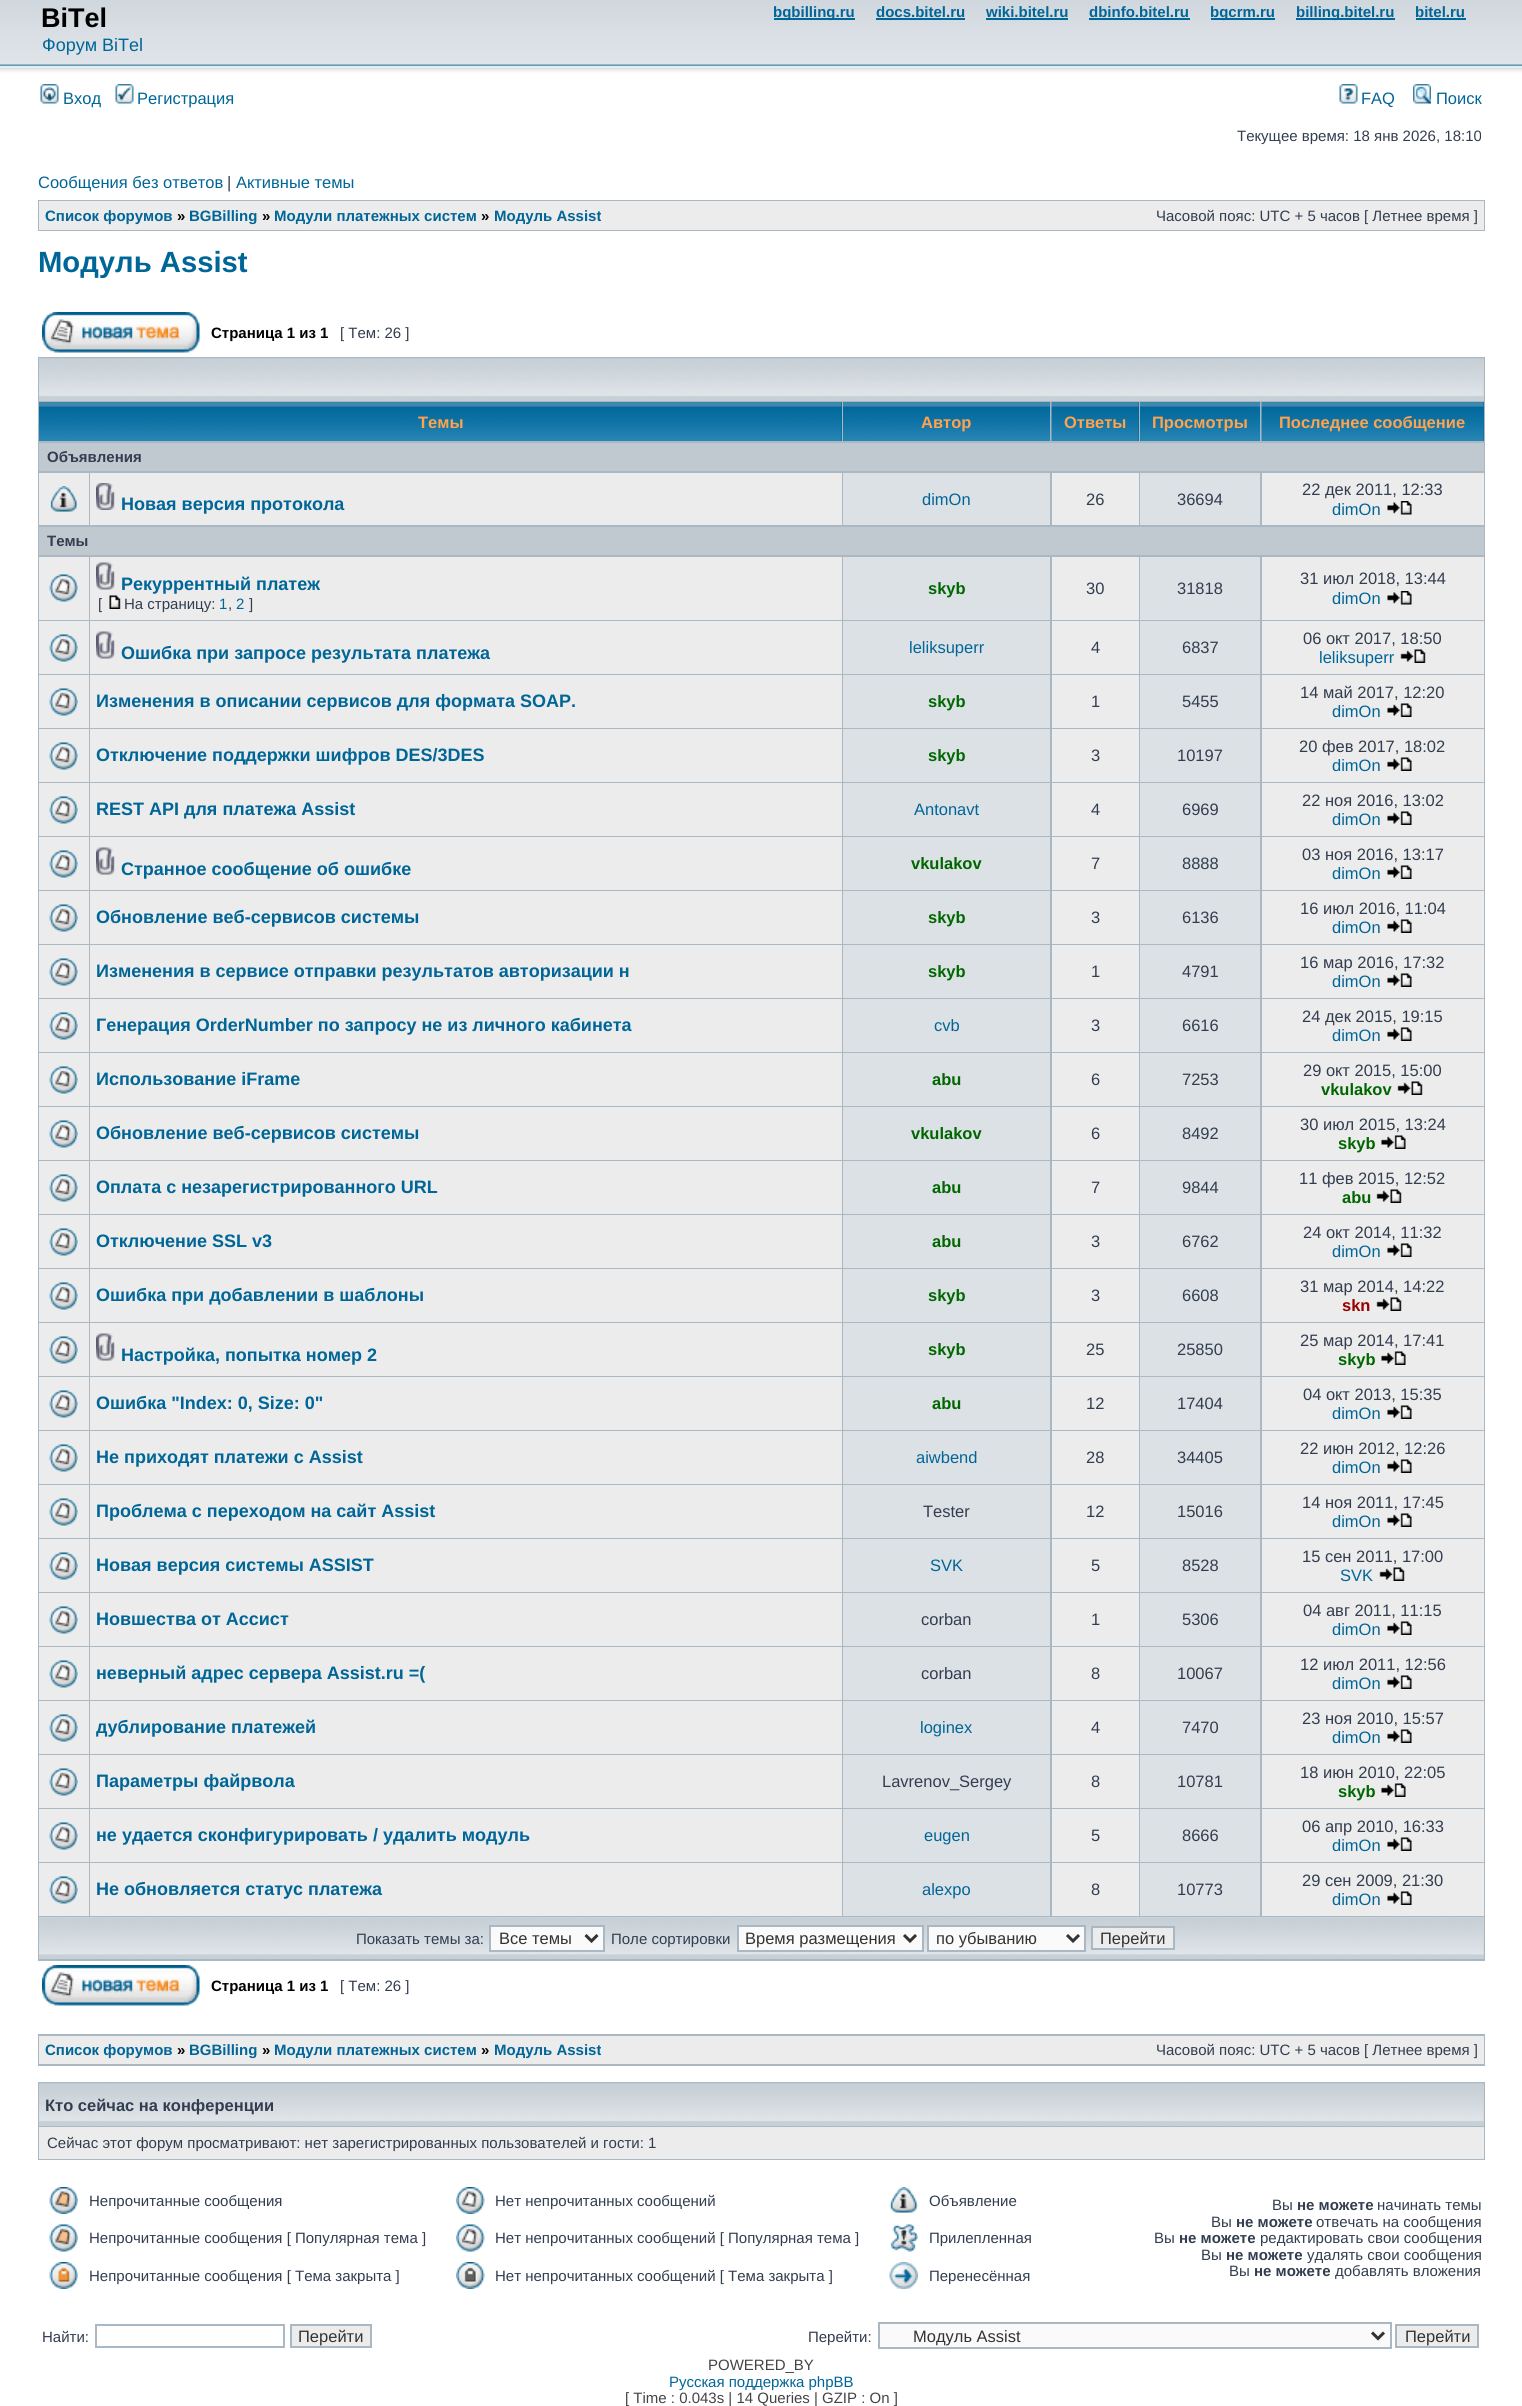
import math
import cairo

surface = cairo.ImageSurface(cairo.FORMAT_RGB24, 1522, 2406)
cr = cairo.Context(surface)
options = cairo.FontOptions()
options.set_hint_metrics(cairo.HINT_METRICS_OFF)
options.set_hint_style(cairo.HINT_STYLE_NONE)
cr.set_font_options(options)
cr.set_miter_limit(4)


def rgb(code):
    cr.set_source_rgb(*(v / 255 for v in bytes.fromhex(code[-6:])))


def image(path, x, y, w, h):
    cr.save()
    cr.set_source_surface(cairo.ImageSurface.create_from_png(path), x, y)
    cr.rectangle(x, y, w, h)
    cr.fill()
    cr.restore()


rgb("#ffffff")
cr.paint()
image("img/1.png", 0, 0, 1522, 81)
for x, y, w, h, color in [
    (774, 18, 81, 2, "#006597"),
    (876, 18, 89, 2, "#006597"),
    (986, 18, 82, 2, "#006597"),
    (1089, 18, 101, 2, "#006597"),
    (1211, 18, 64, 2, "#006597"),
    (1296, 18, 99, 2, "#006597"),
    (1416, 18, 50, 2, "#006597"),
]:
    rgb(color)
    cr.rectangle(x, y, w, h)
    cr.fill()
image("img/2.png", 40, 84, 19, 20)
image("img/3.png", 115, 84, 19, 20)
image("img/4.png", 1339, 84, 19, 20)
image("img/5.png", 1413, 84, 18, 20)
rgb("#a9b8c2")
cr.rectangle(38, 200, 1447, 31)
cr.fill()
rgb("#ececec")
cr.rectangle(39, 201, 1445, 29)
cr.fill()
image("img/6.png", 42, 312, 158, 41)
rgb("#a9b8c2")
cr.rectangle(38, 357, 1447, 1604)
cr.fill()
rgb("#c7d0d7")
cr.rectangle(39, 359, 1445, 42)
cr.fill()
image("img/7.png", 39, 358, 1445, 39)
rgb("#006699")
cr.rectangle(841, 402, 1, 39)
cr.fill()
image("img/8.png", 39, 402, 803, 39)
image("img/9.png", 843, 402, 207, 39)
cr.rectangle(1138, 402, 1, 39)
cr.fill()
image("img/10.png", 1051, 402, 88, 39)
image("img/11.png", 1140, 402, 120, 39)
cr.rectangle(1483, 402, 1, 39)
cr.fill()
image("img/12.png", 1261, 402, 223, 39)
rgb("#c0c8d0")
cr.rectangle(39, 443, 1445, 28)
cr.fill()
rgb("#ececec")
cr.rectangle(39, 473, 50, 52)
cr.fill()
image("img/13.png", 49, 486, 29, 26)
cr.rectangle(90, 473, 752, 52)
cr.fill()
image("img/14.png", 96, 483, 19, 27)
for x, y, w, h, color in [
    (843, 473, 207, 52, "#dce1e5"),
    (1052, 473, 87, 52, "#ececec"),
    (1140, 473, 120, 52, "#dce1e5"),
    (1262, 473, 222, 52, "#ececec"),
]:
    rgb(color)
    cr.rectangle(x, y, w, h)
    cr.fill()
image("img/15.png", 1387, 501, 25, 14)
rgb("#c0c8d0")
cr.rectangle(39, 527, 1445, 28)
cr.fill()
rgb("#ececec")
cr.rectangle(39, 557, 50, 63)
cr.fill()
image("img/16.png", 49, 574, 29, 28)
cr.rectangle(90, 557, 752, 63)
cr.fill()
image("img/17.png", 96, 562, 19, 28)
image("img/18.png", 109, 595, 12, 14)
for x, y, w, h, color in [
    (843, 557, 207, 63, "#dce1e5"),
    (1052, 557, 87, 63, "#ececec"),
    (1140, 557, 120, 63, "#dce1e5"),
    (1262, 557, 222, 63, "#ececec"),
]:
    rgb(color)
    cr.rectangle(x, y, w, h)
    cr.fill()
image("img/15.png", 1387, 591, 25, 14)
cr.rectangle(39, 621, 50, 53)
cr.fill()
image("img/19.png", 49, 634, 29, 28)
cr.rectangle(90, 621, 752, 53)
cr.fill()
image("img/17.png", 96, 631, 19, 28)
for x, y, w, h, color in [
    (843, 621, 207, 53, "#dce1e5"),
    (1052, 621, 87, 53, "#ececec"),
    (1140, 621, 120, 53, "#dce1e5"),
    (1262, 621, 222, 53, "#ececec"),
]:
    rgb(color)
    cr.rectangle(x, y, w, h)
    cr.fill()
image("img/20.png", 1400, 649, 26, 14)
cr.rectangle(39, 675, 50, 53)
cr.fill()
image("img/19.png", 49, 688, 29, 28)
for x, y, w, h, color in [
    (90, 675, 752, 53, "#ececec"),
    (843, 675, 207, 53, "#dce1e5"),
    (1052, 675, 87, 53, "#ececec"),
    (1140, 675, 120, 53, "#dce1e5"),
    (1262, 675, 222, 53, "#ececec"),
]:
    rgb(color)
    cr.rectangle(x, y, w, h)
    cr.fill()
image("img/21.png", 1387, 703, 25, 14)
cr.rectangle(39, 729, 50, 53)
cr.fill()
image("img/19.png", 49, 742, 29, 28)
for x, y, w, h, color in [
    (90, 729, 752, 53, "#ececec"),
    (843, 729, 207, 53, "#dce1e5"),
    (1052, 729, 87, 53, "#ececec"),
    (1140, 729, 120, 53, "#dce1e5"),
    (1262, 729, 222, 53, "#ececec"),
]:
    rgb(color)
    cr.rectangle(x, y, w, h)
    cr.fill()
image("img/21.png", 1387, 757, 25, 14)
cr.rectangle(39, 783, 50, 53)
cr.fill()
image("img/19.png", 49, 796, 29, 28)
for x, y, w, h, color in [
    (90, 783, 752, 53, "#ececec"),
    (843, 783, 207, 53, "#dce1e5"),
    (1052, 783, 87, 53, "#ececec"),
    (1140, 783, 120, 53, "#dce1e5"),
    (1262, 783, 222, 53, "#ececec"),
]:
    rgb(color)
    cr.rectangle(x, y, w, h)
    cr.fill()
image("img/21.png", 1387, 811, 25, 14)
cr.rectangle(39, 837, 50, 53)
cr.fill()
image("img/19.png", 49, 850, 29, 28)
cr.rectangle(90, 837, 752, 53)
cr.fill()
image("img/17.png", 96, 847, 19, 28)
for x, y, w, h, color in [
    (843, 837, 207, 53, "#dce1e5"),
    (1052, 837, 87, 53, "#ececec"),
    (1140, 837, 120, 53, "#dce1e5"),
    (1262, 837, 222, 53, "#ececec"),
]:
    rgb(color)
    cr.rectangle(x, y, w, h)
    cr.fill()
image("img/21.png", 1387, 865, 25, 14)
cr.rectangle(39, 891, 50, 53)
cr.fill()
image("img/19.png", 49, 904, 29, 28)
for x, y, w, h, color in [
    (90, 891, 752, 53, "#ececec"),
    (843, 891, 207, 53, "#dce1e5"),
    (1052, 891, 87, 53, "#ececec"),
    (1140, 891, 120, 53, "#dce1e5"),
    (1262, 891, 222, 53, "#ececec"),
]:
    rgb(color)
    cr.rectangle(x, y, w, h)
    cr.fill()
image("img/21.png", 1387, 919, 25, 14)
cr.rectangle(39, 945, 50, 53)
cr.fill()
image("img/19.png", 49, 958, 29, 28)
for x, y, w, h, color in [
    (90, 945, 752, 53, "#ececec"),
    (843, 945, 207, 53, "#dce1e5"),
    (1052, 945, 87, 53, "#ececec"),
    (1140, 945, 120, 53, "#dce1e5"),
    (1262, 945, 222, 53, "#ececec"),
]:
    rgb(color)
    cr.rectangle(x, y, w, h)
    cr.fill()
image("img/21.png", 1387, 973, 25, 14)
cr.rectangle(39, 999, 50, 53)
cr.fill()
image("img/19.png", 49, 1012, 29, 28)
for x, y, w, h, color in [
    (90, 999, 752, 53, "#ececec"),
    (843, 999, 207, 53, "#dce1e5"),
    (1052, 999, 87, 53, "#ececec"),
    (1140, 999, 120, 53, "#dce1e5"),
    (1262, 999, 222, 53, "#ececec"),
]:
    rgb(color)
    cr.rectangle(x, y, w, h)
    cr.fill()
image("img/21.png", 1387, 1027, 25, 14)
cr.rectangle(39, 1053, 50, 53)
cr.fill()
image("img/19.png", 49, 1066, 29, 28)
for x, y, w, h, color in [
    (90, 1053, 752, 53, "#ececec"),
    (843, 1053, 207, 53, "#dce1e5"),
    (1052, 1053, 87, 53, "#ececec"),
    (1140, 1053, 120, 53, "#dce1e5"),
    (1262, 1053, 222, 53, "#ececec"),
]:
    rgb(color)
    cr.rectangle(x, y, w, h)
    cr.fill()
image("img/20.png", 1397, 1081, 26, 14)
cr.rectangle(39, 1107, 50, 53)
cr.fill()
image("img/19.png", 49, 1120, 29, 28)
for x, y, w, h, color in [
    (90, 1107, 752, 53, "#ececec"),
    (843, 1107, 207, 53, "#dce1e5"),
    (1052, 1107, 87, 53, "#ececec"),
    (1140, 1107, 120, 53, "#dce1e5"),
    (1262, 1107, 222, 53, "#ececec"),
]:
    rgb(color)
    cr.rectangle(x, y, w, h)
    cr.fill()
image("img/21.png", 1381, 1135, 25, 14)
cr.rectangle(39, 1161, 50, 53)
cr.fill()
image("img/19.png", 49, 1174, 29, 28)
for x, y, w, h, color in [
    (90, 1161, 752, 53, "#ececec"),
    (843, 1161, 207, 53, "#dce1e5"),
    (1052, 1161, 87, 53, "#ececec"),
    (1140, 1161, 120, 53, "#dce1e5"),
    (1262, 1161, 222, 53, "#ececec"),
]:
    rgb(color)
    cr.rectangle(x, y, w, h)
    cr.fill()
image("img/20.png", 1376, 1189, 26, 14)
cr.rectangle(39, 1215, 50, 53)
cr.fill()
image("img/19.png", 49, 1228, 29, 28)
for x, y, w, h, color in [
    (90, 1215, 752, 53, "#ececec"),
    (843, 1215, 207, 53, "#dce1e5"),
    (1052, 1215, 87, 53, "#ececec"),
    (1140, 1215, 120, 53, "#dce1e5"),
    (1262, 1215, 222, 53, "#ececec"),
]:
    rgb(color)
    cr.rectangle(x, y, w, h)
    cr.fill()
image("img/21.png", 1387, 1243, 25, 14)
cr.rectangle(39, 1269, 50, 53)
cr.fill()
image("img/19.png", 49, 1282, 29, 28)
for x, y, w, h, color in [
    (90, 1269, 752, 53, "#ececec"),
    (843, 1269, 207, 53, "#dce1e5"),
    (1052, 1269, 87, 53, "#ececec"),
    (1140, 1269, 120, 53, "#dce1e5"),
    (1262, 1269, 222, 53, "#ececec"),
]:
    rgb(color)
    cr.rectangle(x, y, w, h)
    cr.fill()
image("img/20.png", 1376, 1297, 26, 14)
cr.rectangle(39, 1323, 50, 53)
cr.fill()
image("img/16.png", 49, 1336, 29, 28)
cr.rectangle(90, 1323, 752, 53)
cr.fill()
image("img/17.png", 96, 1333, 19, 28)
for x, y, w, h, color in [
    (843, 1323, 207, 53, "#dce1e5"),
    (1052, 1323, 87, 53, "#ececec"),
    (1140, 1323, 120, 53, "#dce1e5"),
    (1262, 1323, 222, 53, "#ececec"),
]:
    rgb(color)
    cr.rectangle(x, y, w, h)
    cr.fill()
image("img/21.png", 1381, 1351, 25, 14)
cr.rectangle(39, 1377, 50, 53)
cr.fill()
image("img/19.png", 49, 1390, 29, 28)
for x, y, w, h, color in [
    (90, 1377, 752, 53, "#ececec"),
    (843, 1377, 207, 53, "#dce1e5"),
    (1052, 1377, 87, 53, "#ececec"),
    (1140, 1377, 120, 53, "#dce1e5"),
    (1262, 1377, 222, 53, "#ececec"),
]:
    rgb(color)
    cr.rectangle(x, y, w, h)
    cr.fill()
image("img/21.png", 1387, 1405, 25, 14)
cr.rectangle(39, 1431, 50, 53)
cr.fill()
image("img/16.png", 49, 1444, 29, 28)
for x, y, w, h, color in [
    (90, 1431, 752, 53, "#ececec"),
    (843, 1431, 207, 53, "#dce1e5"),
    (1052, 1431, 87, 53, "#ececec"),
    (1140, 1431, 120, 53, "#dce1e5"),
    (1262, 1431, 222, 53, "#ececec"),
]:
    rgb(color)
    cr.rectangle(x, y, w, h)
    cr.fill()
image("img/21.png", 1387, 1459, 25, 14)
cr.rectangle(39, 1485, 50, 53)
cr.fill()
image("img/19.png", 49, 1498, 29, 28)
for x, y, w, h, color in [
    (90, 1485, 752, 53, "#ececec"),
    (843, 1485, 207, 53, "#dce1e5"),
    (1052, 1485, 87, 53, "#ececec"),
    (1140, 1485, 120, 53, "#dce1e5"),
    (1262, 1485, 222, 53, "#ececec"),
]:
    rgb(color)
    cr.rectangle(x, y, w, h)
    cr.fill()
image("img/21.png", 1387, 1513, 25, 14)
cr.rectangle(39, 1539, 50, 53)
cr.fill()
image("img/19.png", 49, 1552, 29, 28)
for x, y, w, h, color in [
    (90, 1539, 752, 53, "#ececec"),
    (843, 1539, 207, 53, "#dce1e5"),
    (1052, 1539, 87, 53, "#ececec"),
    (1140, 1539, 120, 53, "#dce1e5"),
    (1262, 1539, 222, 53, "#ececec"),
]:
    rgb(color)
    cr.rectangle(x, y, w, h)
    cr.fill()
image("img/20.png", 1379, 1567, 26, 14)
cr.rectangle(39, 1593, 50, 53)
cr.fill()
image("img/19.png", 49, 1606, 29, 28)
for x, y, w, h, color in [
    (90, 1593, 752, 53, "#ececec"),
    (843, 1593, 207, 53, "#dce1e5"),
    (1052, 1593, 87, 53, "#ececec"),
    (1140, 1593, 120, 53, "#dce1e5"),
    (1262, 1593, 222, 53, "#ececec"),
]:
    rgb(color)
    cr.rectangle(x, y, w, h)
    cr.fill()
image("img/21.png", 1387, 1621, 25, 14)
cr.rectangle(39, 1647, 50, 53)
cr.fill()
image("img/19.png", 49, 1660, 29, 28)
for x, y, w, h, color in [
    (90, 1647, 752, 53, "#ececec"),
    (843, 1647, 207, 53, "#dce1e5"),
    (1052, 1647, 87, 53, "#ececec"),
    (1140, 1647, 120, 53, "#dce1e5"),
    (1262, 1647, 222, 53, "#ececec"),
]:
    rgb(color)
    cr.rectangle(x, y, w, h)
    cr.fill()
image("img/21.png", 1387, 1675, 25, 14)
cr.rectangle(39, 1701, 50, 53)
cr.fill()
image("img/19.png", 49, 1714, 29, 28)
for x, y, w, h, color in [
    (90, 1701, 752, 53, "#ececec"),
    (843, 1701, 207, 53, "#dce1e5"),
    (1052, 1701, 87, 53, "#ececec"),
    (1140, 1701, 120, 53, "#dce1e5"),
    (1262, 1701, 222, 53, "#ececec"),
]:
    rgb(color)
    cr.rectangle(x, y, w, h)
    cr.fill()
image("img/21.png", 1387, 1729, 25, 14)
cr.rectangle(39, 1755, 50, 53)
cr.fill()
image("img/19.png", 49, 1768, 29, 28)
for x, y, w, h, color in [
    (90, 1755, 752, 53, "#ececec"),
    (843, 1755, 207, 53, "#dce1e5"),
    (1052, 1755, 87, 53, "#ececec"),
    (1140, 1755, 120, 53, "#dce1e5"),
    (1262, 1755, 222, 53, "#ececec"),
]:
    rgb(color)
    cr.rectangle(x, y, w, h)
    cr.fill()
image("img/21.png", 1381, 1783, 25, 14)
cr.rectangle(39, 1809, 50, 53)
cr.fill()
image("img/19.png", 49, 1822, 29, 28)
for x, y, w, h, color in [
    (90, 1809, 752, 53, "#ececec"),
    (843, 1809, 207, 53, "#dce1e5"),
    (1052, 1809, 87, 53, "#ececec"),
    (1140, 1809, 120, 53, "#dce1e5"),
    (1262, 1809, 222, 53, "#ececec"),
]:
    rgb(color)
    cr.rectangle(x, y, w, h)
    cr.fill()
image("img/21.png", 1387, 1837, 25, 14)
cr.rectangle(39, 1863, 50, 53)
cr.fill()
image("img/19.png", 49, 1876, 29, 28)
for x, y, w, h, color in [
    (90, 1863, 752, 53, "#ececec"),
    (843, 1863, 207, 53, "#dce1e5"),
    (1052, 1863, 87, 53, "#ececec"),
    (1140, 1863, 120, 53, "#dce1e5"),
    (1262, 1863, 222, 53, "#ececec"),
]:
    rgb(color)
    cr.rectangle(x, y, w, h)
    cr.fill()
image("img/21.png", 1387, 1891, 25, 14)
rgb("#c7d0d7")
cr.rectangle(39, 1917, 1445, 42)
cr.fill()
image("img/22.png", 39, 1917, 1445, 38)
rgb("#fafafa")
cr.rectangle(490, 1926, 114, 25)
cr.fill_preserve()
rgb("#a9b8c2")
cr.stroke()
cr.new_path()
cr.move_to(585.5, 1935)
cr.line_to(591.5, 1941)
cr.line_to(597.5, 1935)
rgb("#333333")
cr.set_line_width(3)
cr.stroke()
rgb("#fafafa")
cr.rectangle(738, 1926, 185, 25)
cr.fill_preserve()
rgb("#a9b8c2")
cr.set_line_width(2)
cr.stroke()
cr.new_path()
cr.move_to(904, 1935)
cr.line_to(910, 1941)
cr.line_to(916, 1935)
rgb("#333333")
cr.set_line_width(3)
cr.stroke()
rgb("#fafafa")
cr.rectangle(928, 1926, 157, 25)
cr.fill_preserve()
rgb("#a9b8c2")
cr.set_line_width(2)
cr.stroke()
cr.new_path()
cr.move_to(1067, 1935)
cr.line_to(1073, 1941)
cr.line_to(1079, 1935)
rgb("#333333")
cr.set_line_width(3)
cr.stroke()
rgb("#ececec")
cr.rectangle(1092, 1927, 82, 22)
cr.fill_preserve()
rgb("#a9b8c2")
cr.set_line_width(2)
cr.stroke()
image("img/6.png", 42, 1965, 158, 41)
for x, y, w, h, color in [
    (38, 2034, 1447, 32, "#a9b8c2"),
    (39, 2036, 1445, 28, "#ececec"),
    (38, 2082, 1447, 78, "#a9b8c2"),
    (39, 2084, 1445, 42, "#c7d0d7"),
]:
    rgb(color)
    cr.rectangle(x, y, w, h)
    cr.fill()
image("img/7.png", 39, 2083, 1445, 39)
rgb("#ececec")
cr.rectangle(39, 2127, 1445, 32)
cr.fill()
image("img/23.png", 49, 2187, 29, 27)
image("img/24.png", 456, 2187, 29, 27)
image("img/25.png", 889, 2187, 29, 26)
image("img/26.png", 49, 2224, 29, 28)
image("img/27.png", 456, 2224, 29, 28)
image("img/28.png", 890, 2224, 28, 28)
image("img/29.png", 49, 2262, 29, 27)
image("img/30.png", 456, 2262, 29, 27)
image("img/31.png", 889, 2262, 29, 27)
cr.rectangle(96, 2325, 188, 22)
rgb("#a9b8c2")
cr.stroke()
rgb("#ececec")
cr.rectangle(291, 2325, 80, 22)
cr.fill_preserve()
rgb("#a9b8c2")
cr.stroke()
rgb("#fafafa")
cr.rectangle(879, 2323, 512, 25)
cr.fill_preserve()
rgb("#a9b8c2")
cr.stroke()
cr.new_path()
cr.move_to(1372, 2332.5)
cr.line_to(1378, 2338.5)
cr.line_to(1384, 2332.5)
rgb("#333333")
cr.set_line_width(3)
cr.stroke()
rgb("#ececec")
cr.rectangle(1396, 2325, 82, 22)
cr.fill_preserve()
rgb("#a9b8c2")
cr.set_line_width(2)
cr.stroke()
cr.select_font_face("Liberation Sans", cairo.FONT_SLANT_NORMAL, cairo.FONT_WEIGHT_BOLD)
cr.set_font_size(27)
rgb("#000000")
cr.move_to(41, 27)
cr.show_text("BiTel")
cr.select_font_face("Liberation Sans")
cr.set_font_size(18)
rgb("#006597")
cr.move_to(42, 51)
cr.show_text("Форум BiTel")
cr.select_font_face("Liberation Sans", cairo.FONT_SLANT_NORMAL, cairo.FONT_WEIGHT_BOLD)
cr.set_font_size(15)
for x, y, s in [
    (773, 17, "bgbilling.ru"),
    (876, 17, "docs.bitel.ru"),
    (986, 17, "wiki.bitel.ru"),
    (1089, 17, "dbinfo.bitel.ru"),
    (1210, 17, "bgcrm.ru"),
    (1296, 17, "billing.bitel.ru"),
    (1415, 17, "bitel.ru"),
]:
    cr.move_to(x, y)
    cr.show_text(s)
cr.select_font_face("Liberation Sans")
cr.set_font_size(16.5)
for x, y, s in [
    (63, 104, "Вход"),
    (137, 104, "Регистрация"),
    (1361, 104, "FAQ"),
    (1436, 104, "Поиск"),
]:
    cr.move_to(x, y)
    cr.show_text(s)
cr.set_font_size(15)
rgb("#323d4f")
cr.move_to(1237, 141)
cr.show_text("Текущее время: 18 янв 2026, 18:10")
cr.set_font_size(16.5)
rgb("#006597")
cr.move_to(38, 188)
cr.show_text("Сообщения без ответов")
rgb("#323d4f")
cr.move_to(227, 188)
cr.show_text("|")
rgb("#006597")
cr.move_to(236, 188)
cr.show_text("Активные темы")
cr.select_font_face("Liberation Sans", cairo.FONT_SLANT_NORMAL, cairo.FONT_WEIGHT_BOLD)
cr.set_font_size(15)
cr.move_to(45, 221)
cr.show_text("Список форумов")
rgb("#000000")
cr.move_to(177, 221)
cr.show_text("»")
rgb("#006597")
cr.move_to(189, 221)
cr.show_text("BGBilling")
rgb("#000000")
cr.move_to(262, 221)
cr.show_text("»")
rgb("#006597")
cr.move_to(274, 221)
cr.show_text("Модули платежных систем")
rgb("#000000")
cr.move_to(481, 221)
cr.show_text("»")
rgb("#006597")
cr.move_to(494, 221)
cr.show_text("Модуль Assist")
cr.select_font_face("Liberation Sans")
rgb("#323d4f")
cr.move_to(1156, 221)
cr.show_text("Часовой пояс: UTC + 5 часов [ Летнее время ]")
cr.select_font_face("Liberation Sans", cairo.FONT_SLANT_NORMAL, cairo.FONT_WEIGHT_BOLD)
cr.set_font_size(29.25)
rgb("#006597")
cr.move_to(38, 272)
cr.show_text("Модуль Assist")
cr.set_font_size(15)
rgb("#000000")
cr.move_to(211, 338)
cr.show_text("Страница 1 из 1")
cr.select_font_face("Liberation Sans")
rgb("#323d4f")
cr.move_to(340, 338)
cr.show_text("[ Тем: 26 ]")
cr.select_font_face("Liberation Sans", cairo.FONT_SLANT_NORMAL, cairo.FONT_WEIGHT_BOLD)
cr.set_font_size(16.5)
rgb("#ffa34f")
for x, y, s in [
    (418, 428, "Темы"),
    (921, 428, "Автор"),
    (1064, 428, "Ответы"),
    (1152, 428, "Просмотры"),
    (1279, 428, "Последнее сообщение"),
]:
    cr.move_to(x, y)
    cr.show_text(s)
cr.set_font_size(15)
rgb("#323d4f")
cr.move_to(47, 462)
cr.show_text("Объявления")
cr.set_font_size(18)
rgb("#006597")
cr.move_to(121, 510)
cr.show_text("Новая версия протокола")
cr.select_font_face("Liberation Sans")
cr.set_font_size(16.5)
cr.move_to(922, 505)
cr.show_text("dimOn")
rgb("#323d4f")
for x, y, s in [
    (1086, 505, "26"),
    (1177, 505, "36694"),
    (1302, 495, "22 дек 2011, 12:33"),
]:
    cr.move_to(x, y)
    cr.show_text(s)
rgb("#006597")
cr.move_to(1332, 515)
cr.show_text("dimOn")
cr.select_font_face("Liberation Sans", cairo.FONT_SLANT_NORMAL, cairo.FONT_WEIGHT_BOLD)
cr.set_font_size(15)
rgb("#323d4f")
cr.move_to(47, 546)
cr.show_text("Темы")
cr.set_font_size(18)
rgb("#006597")
cr.move_to(121, 590)
cr.show_text("Рекуррентный платеж")
cr.select_font_face("Liberation Sans")
cr.set_font_size(15)
rgb("#323d4f")
cr.move_to(98, 609)
cr.show_text("[")
cr.move_to(124, 609)
cr.show_text("На страницу:")
rgb("#006597")
cr.move_to(219, 609)
cr.show_text("1")
rgb("#323d4f")
cr.move_to(228, 609)
cr.show_text(",")
rgb("#006597")
cr.move_to(236, 609)
cr.show_text("2")
rgb("#323d4f")
cr.move_to(249, 609)
cr.show_text("]")
cr.select_font_face("Liberation Sans", cairo.FONT_SLANT_NORMAL, cairo.FONT_WEIGHT_BOLD)
cr.set_font_size(16.5)
rgb("#006600")
cr.move_to(928, 594)
cr.show_text("skyb")
cr.select_font_face("Liberation Sans")
rgb("#323d4f")
for x, y, s in [
    (1086, 594, "30"),
    (1177, 594, "31818"),
    (1300, 584, "31 июл 2018, 13:44"),
]:
    cr.move_to(x, y)
    cr.show_text(s)
rgb("#006597")
cr.move_to(1332, 604)
cr.show_text("dimOn")
cr.select_font_face("Liberation Sans", cairo.FONT_SLANT_NORMAL, cairo.FONT_WEIGHT_BOLD)
cr.set_font_size(18)
cr.move_to(121, 659)
cr.show_text("Ошибка при запросе результата платежа")
cr.select_font_face("Liberation Sans")
cr.set_font_size(16.5)
cr.move_to(909, 653)
cr.show_text("leliksuperr")
rgb("#323d4f")
for x, y, s in [
    (1091, 653, "4"),
    (1182, 653, "6837"),
    (1303, 644, "06 окт 2017, 18:50"),
]:
    cr.move_to(x, y)
    cr.show_text(s)
rgb("#006597")
cr.move_to(1319, 663)
cr.show_text("leliksuperr")
cr.select_font_face("Liberation Sans", cairo.FONT_SLANT_NORMAL, cairo.FONT_WEIGHT_BOLD)
cr.set_font_size(18)
cr.move_to(96, 707)
cr.show_text("Изменения в описании сервисов для формата SOAP.")
cr.set_font_size(16.5)
rgb("#006600")
cr.move_to(928, 707)
cr.show_text("skyb")
cr.select_font_face("Liberation Sans")
rgb("#323d4f")
for x, y, s in [
    (1091, 707, "1"),
    (1182, 707, "5455"),
    (1300, 698, "14 май 2017, 12:20"),
]:
    cr.move_to(x, y)
    cr.show_text(s)
rgb("#006597")
cr.move_to(1332, 717)
cr.show_text("dimOn")
cr.select_font_face("Liberation Sans", cairo.FONT_SLANT_NORMAL, cairo.FONT_WEIGHT_BOLD)
cr.set_font_size(18)
cr.move_to(96, 761)
cr.show_text("Отключение поддержки шифров DES/3DES")
cr.set_font_size(16.5)
rgb("#006600")
cr.move_to(928, 761)
cr.show_text("skyb")
cr.select_font_face("Liberation Sans")
rgb("#323d4f")
for x, y, s in [
    (1091, 761, "3"),
    (1177, 761, "10197"),
    (1299, 752, "20 фев 2017, 18:02"),
]:
    cr.move_to(x, y)
    cr.show_text(s)
rgb("#006597")
cr.move_to(1332, 771)
cr.show_text("dimOn")
cr.select_font_face("Liberation Sans", cairo.FONT_SLANT_NORMAL, cairo.FONT_WEIGHT_BOLD)
cr.set_font_size(18)
cr.move_to(96, 815)
cr.show_text("REST API для платежа Assist")
cr.select_font_face("Liberation Sans")
cr.set_font_size(16.5)
cr.move_to(914, 815)
cr.show_text("Antonavt")
rgb("#323d4f")
for x, y, s in [
    (1091, 815, "4"),
    (1182, 815, "6969"),
    (1302, 806, "22 ноя 2016, 13:02"),
]:
    cr.move_to(x, y)
    cr.show_text(s)
rgb("#006597")
cr.move_to(1332, 825)
cr.show_text("dimOn")
cr.select_font_face("Liberation Sans", cairo.FONT_SLANT_NORMAL, cairo.FONT_WEIGHT_BOLD)
cr.set_font_size(18)
cr.move_to(121, 875)
cr.show_text("Странное сообщение об ошибке")
cr.set_font_size(16.5)
rgb("#006600")
cr.move_to(911, 869)
cr.show_text("vkulakov")
cr.select_font_face("Liberation Sans")
rgb("#323d4f")
for x, y, s in [
    (1091, 869, "7"),
    (1182, 869, "8888"),
    (1302, 860, "03 ноя 2016, 13:17"),
]:
    cr.move_to(x, y)
    cr.show_text(s)
rgb("#006597")
cr.move_to(1332, 879)
cr.show_text("dimOn")
cr.select_font_face("Liberation Sans", cairo.FONT_SLANT_NORMAL, cairo.FONT_WEIGHT_BOLD)
cr.set_font_size(18)
cr.move_to(96, 923)
cr.show_text("Обновление веб-сервисов системы")
cr.set_font_size(16.5)
rgb("#006600")
cr.move_to(928, 923)
cr.show_text("skyb")
cr.select_font_face("Liberation Sans")
rgb("#323d4f")
for x, y, s in [
    (1091, 923, "3"),
    (1182, 923, "6136"),
    (1300, 914, "16 июл 2016, 11:04"),
]:
    cr.move_to(x, y)
    cr.show_text(s)
rgb("#006597")
cr.move_to(1332, 933)
cr.show_text("dimOn")
cr.select_font_face("Liberation Sans", cairo.FONT_SLANT_NORMAL, cairo.FONT_WEIGHT_BOLD)
cr.set_font_size(18)
cr.move_to(96, 977)
cr.show_text("Изменения в сервисе отправки результатов авторизации н")
cr.set_font_size(16.5)
rgb("#006600")
cr.move_to(928, 977)
cr.show_text("skyb")
cr.select_font_face("Liberation Sans")
rgb("#323d4f")
for x, y, s in [
    (1091, 977, "1"),
    (1182, 977, "4791"),
    (1300, 968, "16 мар 2016, 17:32"),
]:
    cr.move_to(x, y)
    cr.show_text(s)
rgb("#006597")
cr.move_to(1332, 987)
cr.show_text("dimOn")
cr.select_font_face("Liberation Sans", cairo.FONT_SLANT_NORMAL, cairo.FONT_WEIGHT_BOLD)
cr.set_font_size(18)
cr.move_to(96, 1031)
cr.show_text("Генерация OrderNumber по запросу не из личного кабинета")
cr.select_font_face("Liberation Sans")
cr.set_font_size(16.5)
cr.move_to(934, 1031)
cr.show_text("cvb")
rgb("#323d4f")
for x, y, s in [
    (1091, 1031, "3"),
    (1182, 1031, "6616"),
    (1302, 1022, "24 дек 2015, 19:15"),
]:
    cr.move_to(x, y)
    cr.show_text(s)
rgb("#006597")
cr.move_to(1332, 1041)
cr.show_text("dimOn")
cr.select_font_face("Liberation Sans", cairo.FONT_SLANT_NORMAL, cairo.FONT_WEIGHT_BOLD)
cr.set_font_size(18)
cr.move_to(96, 1085)
cr.show_text("Использование iFrame")
cr.set_font_size(16.5)
rgb("#006600")
cr.move_to(932, 1085)
cr.show_text("abu")
cr.select_font_face("Liberation Sans")
rgb("#323d4f")
for x, y, s in [
    (1091, 1085, "6"),
    (1182, 1085, "7253"),
    (1303, 1076, "29 окт 2015, 15:00"),
]:
    cr.move_to(x, y)
    cr.show_text(s)
cr.select_font_face("Liberation Sans", cairo.FONT_SLANT_NORMAL, cairo.FONT_WEIGHT_BOLD)
rgb("#006600")
cr.move_to(1321, 1095)
cr.show_text("vkulakov")
cr.set_font_size(18)
rgb("#006597")
cr.move_to(96, 1139)
cr.show_text("Обновление веб-сервисов системы")
cr.set_font_size(16.5)
rgb("#006600")
cr.move_to(911, 1139)
cr.show_text("vkulakov")
cr.select_font_face("Liberation Sans")
rgb("#323d4f")
for x, y, s in [
    (1091, 1139, "6"),
    (1182, 1139, "8492"),
    (1300, 1130, "30 июл 2015, 13:24"),
]:
    cr.move_to(x, y)
    cr.show_text(s)
cr.select_font_face("Liberation Sans", cairo.FONT_SLANT_NORMAL, cairo.FONT_WEIGHT_BOLD)
rgb("#006600")
cr.move_to(1338, 1149)
cr.show_text("skyb")
cr.set_font_size(18)
rgb("#006597")
cr.move_to(96, 1193)
cr.show_text("Оплата с незарегистрированного URL")
cr.set_font_size(16.5)
rgb("#006600")
cr.move_to(932, 1193)
cr.show_text("abu")
cr.select_font_face("Liberation Sans")
rgb("#323d4f")
for x, y, s in [
    (1091, 1193, "7"),
    (1182, 1193, "9844"),
    (1299, 1184, "11 фев 2015, 12:52"),
]:
    cr.move_to(x, y)
    cr.show_text(s)
cr.select_font_face("Liberation Sans", cairo.FONT_SLANT_NORMAL, cairo.FONT_WEIGHT_BOLD)
rgb("#006600")
cr.move_to(1342, 1203)
cr.show_text("abu")
cr.set_font_size(18)
rgb("#006597")
cr.move_to(96, 1247)
cr.show_text("Отключение SSL v3")
cr.set_font_size(16.5)
rgb("#006600")
cr.move_to(932, 1247)
cr.show_text("abu")
cr.select_font_face("Liberation Sans")
rgb("#323d4f")
for x, y, s in [
    (1091, 1247, "3"),
    (1182, 1247, "6762"),
    (1303, 1238, "24 окт 2014, 11:32"),
]:
    cr.move_to(x, y)
    cr.show_text(s)
rgb("#006597")
cr.move_to(1332, 1257)
cr.show_text("dimOn")
cr.select_font_face("Liberation Sans", cairo.FONT_SLANT_NORMAL, cairo.FONT_WEIGHT_BOLD)
cr.set_font_size(18)
cr.move_to(96, 1301)
cr.show_text("Ошибка при добавлении в шаблоны")
cr.set_font_size(16.5)
rgb("#006600")
cr.move_to(928, 1301)
cr.show_text("skyb")
cr.select_font_face("Liberation Sans")
rgb("#323d4f")
for x, y, s in [
    (1091, 1301, "3"),
    (1182, 1301, "6608"),
    (1300, 1292, "31 мар 2014, 14:22"),
]:
    cr.move_to(x, y)
    cr.show_text(s)
cr.select_font_face("Liberation Sans", cairo.FONT_SLANT_NORMAL, cairo.FONT_WEIGHT_BOLD)
rgb("#990000")
cr.move_to(1342, 1311)
cr.show_text("skn")
cr.set_font_size(18)
rgb("#006597")
cr.move_to(121, 1361)
cr.show_text("Настройка, попытка номер 2")
cr.set_font_size(16.5)
rgb("#006600")
cr.move_to(928, 1355)
cr.show_text("skyb")
cr.select_font_face("Liberation Sans")
rgb("#323d4f")
for x, y, s in [
    (1086, 1355, "25"),
    (1177, 1355, "25850"),
    (1300, 1346, "25 мар 2014, 17:41"),
]:
    cr.move_to(x, y)
    cr.show_text(s)
cr.select_font_face("Liberation Sans", cairo.FONT_SLANT_NORMAL, cairo.FONT_WEIGHT_BOLD)
rgb("#006600")
cr.move_to(1338, 1365)
cr.show_text("skyb")
cr.set_font_size(18)
rgb("#006597")
cr.move_to(96, 1409)
cr.show_text("Ошибка \"Index: 0, Size: 0\"")
cr.set_font_size(16.5)
rgb("#006600")
cr.move_to(932, 1409)
cr.show_text("abu")
cr.select_font_face("Liberation Sans")
rgb("#323d4f")
for x, y, s in [
    (1086, 1409, "12"),
    (1177, 1409, "17404"),
    (1303, 1400, "04 окт 2013, 15:35"),
]:
    cr.move_to(x, y)
    cr.show_text(s)
rgb("#006597")
cr.move_to(1332, 1419)
cr.show_text("dimOn")
cr.select_font_face("Liberation Sans", cairo.FONT_SLANT_NORMAL, cairo.FONT_WEIGHT_BOLD)
cr.set_font_size(18)
cr.move_to(96, 1463)
cr.show_text("Не приходят платежи с Assist")
cr.select_font_face("Liberation Sans")
cr.set_font_size(16.5)
cr.move_to(916, 1463)
cr.show_text("aiwbend")
rgb("#323d4f")
for x, y, s in [
    (1086, 1463, "28"),
    (1177, 1463, "34405"),
    (1300, 1454, "22 июн 2012, 12:26"),
]:
    cr.move_to(x, y)
    cr.show_text(s)
rgb("#006597")
cr.move_to(1332, 1473)
cr.show_text("dimOn")
cr.select_font_face("Liberation Sans", cairo.FONT_SLANT_NORMAL, cairo.FONT_WEIGHT_BOLD)
cr.set_font_size(18)
cr.move_to(96, 1517)
cr.show_text("Проблема с переходом на сайт Assist")
cr.select_font_face("Liberation Sans")
cr.set_font_size(16.5)
rgb("#323d4f")
for x, y, s in [
    (923, 1517, "Tester"),
    (1086, 1517, "12"),
    (1177, 1517, "15016"),
    (1302, 1508, "14 ноя 2011, 17:45"),
]:
    cr.move_to(x, y)
    cr.show_text(s)
rgb("#006597")
cr.move_to(1332, 1527)
cr.show_text("dimOn")
cr.select_font_face("Liberation Sans", cairo.FONT_SLANT_NORMAL, cairo.FONT_WEIGHT_BOLD)
cr.set_font_size(18)
cr.move_to(96, 1571)
cr.show_text("Новая версия системы ASSIST")
cr.select_font_face("Liberation Sans")
cr.set_font_size(16.5)
cr.move_to(930, 1571)
cr.show_text("SVK")
rgb("#323d4f")
for x, y, s in [
    (1091, 1571, "5"),
    (1182, 1571, "8528"),
    (1302, 1562, "15 сен 2011, 17:00"),
]:
    cr.move_to(x, y)
    cr.show_text(s)
rgb("#006597")
cr.move_to(1340, 1581)
cr.show_text("SVK")
cr.select_font_face("Liberation Sans", cairo.FONT_SLANT_NORMAL, cairo.FONT_WEIGHT_BOLD)
cr.set_font_size(18)
cr.move_to(96, 1625)
cr.show_text("Новшества от Ассист")
cr.select_font_face("Liberation Sans")
cr.set_font_size(16.5)
rgb("#323d4f")
for x, y, s in [
    (921, 1625, "corban"),
    (1091, 1625, "1"),
    (1182, 1625, "5306"),
    (1303, 1616, "04 авг 2011, 11:15"),
]:
    cr.move_to(x, y)
    cr.show_text(s)
rgb("#006597")
cr.move_to(1332, 1635)
cr.show_text("dimOn")
cr.select_font_face("Liberation Sans", cairo.FONT_SLANT_NORMAL, cairo.FONT_WEIGHT_BOLD)
cr.set_font_size(18)
cr.move_to(96, 1679)
cr.show_text("неверный адрес сервера Assist.ru =(")
cr.select_font_face("Liberation Sans")
cr.set_font_size(16.5)
rgb("#323d4f")
for x, y, s in [
    (921, 1679, "corban"),
    (1091, 1679, "8"),
    (1177, 1679, "10067"),
    (1300, 1670, "12 июл 2011, 12:56"),
]:
    cr.move_to(x, y)
    cr.show_text(s)
rgb("#006597")
cr.move_to(1332, 1689)
cr.show_text("dimOn")
cr.select_font_face("Liberation Sans", cairo.FONT_SLANT_NORMAL, cairo.FONT_WEIGHT_BOLD)
cr.set_font_size(18)
cr.move_to(96, 1733)
cr.show_text("дублирование платежей")
cr.select_font_face("Liberation Sans")
cr.set_font_size(16.5)
cr.move_to(920, 1733)
cr.show_text("loginex")
rgb("#323d4f")
for x, y, s in [
    (1091, 1733, "4"),
    (1182, 1733, "7470"),
    (1302, 1724, "23 ноя 2010, 15:57"),
]:
    cr.move_to(x, y)
    cr.show_text(s)
rgb("#006597")
cr.move_to(1332, 1743)
cr.show_text("dimOn")
cr.select_font_face("Liberation Sans", cairo.FONT_SLANT_NORMAL, cairo.FONT_WEIGHT_BOLD)
cr.set_font_size(18)
cr.move_to(96, 1787)
cr.show_text("Параметры файрвола")
cr.select_font_face("Liberation Sans")
cr.set_font_size(16.5)
rgb("#323d4f")
for x, y, s in [
    (882, 1787, "Lavrenov_Sergey"),
    (1091, 1787, "8"),
    (1177, 1787, "10781"),
    (1300, 1778, "18 июн 2010, 22:05"),
]:
    cr.move_to(x, y)
    cr.show_text(s)
cr.select_font_face("Liberation Sans", cairo.FONT_SLANT_NORMAL, cairo.FONT_WEIGHT_BOLD)
rgb("#006600")
cr.move_to(1338, 1797)
cr.show_text("skyb")
cr.set_font_size(18)
rgb("#006597")
cr.move_to(96, 1841)
cr.show_text("не удается сконфигурировать / удалить модуль")
cr.select_font_face("Liberation Sans")
cr.set_font_size(16.5)
cr.move_to(924, 1841)
cr.show_text("eugen")
rgb("#323d4f")
for x, y, s in [
    (1091, 1841, "5"),
    (1182, 1841, "8666"),
    (1302, 1832, "06 апр 2010, 16:33"),
]:
    cr.move_to(x, y)
    cr.show_text(s)
rgb("#006597")
cr.move_to(1332, 1851)
cr.show_text("dimOn")
cr.select_font_face("Liberation Sans", cairo.FONT_SLANT_NORMAL, cairo.FONT_WEIGHT_BOLD)
cr.set_font_size(18)
cr.move_to(96, 1895)
cr.show_text("Не обновляется статус платежа")
cr.select_font_face("Liberation Sans")
cr.set_font_size(16.5)
cr.move_to(922, 1895)
cr.show_text("alexpo")
rgb("#323d4f")
for x, y, s in [
    (1091, 1895, "8"),
    (1177, 1895, "10773"),
    (1302, 1886, "29 сен 2009, 21:30"),
]:
    cr.move_to(x, y)
    cr.show_text(s)
rgb("#006597")
cr.move_to(1332, 1905)
cr.show_text("dimOn")
cr.set_font_size(15)
rgb("#323d4f")
cr.move_to(356, 1944)
cr.show_text("Показать темы за:")
cr.set_font_size(16.5)
rgb("#333333")
cr.move_to(499, 1944)
cr.show_text("Все темы")
cr.set_font_size(15)
rgb("#323d4f")
cr.move_to(611, 1944)
cr.show_text("Поле сортировки")
cr.set_font_size(16.5)
rgb("#333333")
for x, y, s in [
    (745, 1944, "Время размещения"),
    (936, 1944, "по убыванию"),
    (1100, 1944, "Перейти"),
]:
    cr.move_to(x, y)
    cr.show_text(s)
cr.select_font_face("Liberation Sans", cairo.FONT_SLANT_NORMAL, cairo.FONT_WEIGHT_BOLD)
cr.set_font_size(15)
rgb("#000000")
cr.move_to(211, 1991)
cr.show_text("Страница 1 из 1")
cr.select_font_face("Liberation Sans")
rgb("#323d4f")
cr.move_to(340, 1991)
cr.show_text("[ Тем: 26 ]")
cr.select_font_face("Liberation Sans", cairo.FONT_SLANT_NORMAL, cairo.FONT_WEIGHT_BOLD)
rgb("#006597")
cr.move_to(45, 2055)
cr.show_text("Список форумов")
rgb("#000000")
cr.move_to(177, 2055)
cr.show_text("»")
rgb("#006597")
cr.move_to(189, 2055)
cr.show_text("BGBilling")
rgb("#000000")
cr.move_to(262, 2055)
cr.show_text("»")
rgb("#006597")
cr.move_to(274, 2055)
cr.show_text("Модули платежных систем")
rgb("#000000")
cr.move_to(481, 2055)
cr.show_text("»")
rgb("#006597")
cr.move_to(494, 2055)
cr.show_text("Модуль Assist")
cr.select_font_face("Liberation Sans")
rgb("#323d4f")
cr.move_to(1156, 2055)
cr.show_text("Часовой пояс: UTC + 5 часов [ Летнее время ]")
cr.select_font_face("Liberation Sans", cairo.FONT_SLANT_NORMAL, cairo.FONT_WEIGHT_BOLD)
cr.set_font_size(16.5)
cr.move_to(45, 2111)
cr.show_text("Кто сейчас на конференции")
cr.select_font_face("Liberation Sans")
cr.set_font_size(15)
for x, y, s in [
    (47, 2148, "Сейчас этот форум просматривают: нет зарегистрированных пользователей и гости: 1"),
    (89, 2206, "Непрочитанные сообщения"),
    (495, 2206, "Нет непрочитанных сообщений"),
    (929, 2206, "Объявление"),
    (89, 2243, "Непрочитанные сообщения [ Популярная тема ]"),
    (495, 2243, "Нет непрочитанных сообщений [ Популярная тема ]"),
    (929, 2243, "Прилепленная"),
    (89, 2281, "Непрочитанные сообщения [ Тема закрыта ]"),
    (495, 2281, "Нет непрочитанных сообщений [ Тема закрыта ]"),
    (929, 2281, "Перенесённая"),
    (1272, 2210, "Вы"),
]:
    cr.move_to(x, y)
    cr.show_text(s)
cr.select_font_face("Liberation Sans", cairo.FONT_SLANT_NORMAL, cairo.FONT_WEIGHT_BOLD)
cr.move_to(1297, 2210)
cr.show_text("не можете")
cr.select_font_face("Liberation Sans")
cr.move_to(1377, 2210)
cr.show_text("начинать темы")
cr.move_to(1211, 2227)
cr.show_text("Вы")
cr.select_font_face("Liberation Sans", cairo.FONT_SLANT_NORMAL, cairo.FONT_WEIGHT_BOLD)
cr.move_to(1236, 2227)
cr.show_text("не можете")
cr.select_font_face("Liberation Sans")
cr.move_to(1316, 2227)
cr.show_text("отвечать на сообщения")
cr.move_to(1154, 2243)
cr.show_text("Вы")
cr.select_font_face("Liberation Sans", cairo.FONT_SLANT_NORMAL, cairo.FONT_WEIGHT_BOLD)
cr.move_to(1179, 2243)
cr.show_text("не можете")
cr.select_font_face("Liberation Sans")
cr.move_to(1260, 2243)
cr.show_text("редактировать свои сообщения")
cr.move_to(1201, 2260)
cr.show_text("Вы")
cr.select_font_face("Liberation Sans", cairo.FONT_SLANT_NORMAL, cairo.FONT_WEIGHT_BOLD)
cr.move_to(1226, 2260)
cr.show_text("не можете")
cr.select_font_face("Liberation Sans")
cr.move_to(1307, 2260)
cr.show_text("удалять свои сообщения")
cr.move_to(1229, 2276)
cr.show_text("Вы")
cr.select_font_face("Liberation Sans", cairo.FONT_SLANT_NORMAL, cairo.FONT_WEIGHT_BOLD)
cr.move_to(1254, 2276)
cr.show_text("не можете")
cr.select_font_face("Liberation Sans")
cr.move_to(1335, 2276)
cr.show_text("добавлять вложения")
cr.move_to(42, 2342)
cr.show_text("Найти:")
cr.set_font_size(16.5)
rgb("#333333")
cr.move_to(298, 2342)
cr.show_text("Перейти")
cr.set_font_size(15)
rgb("#323d4f")
cr.move_to(808, 2342)
cr.show_text("Перейти:")
cr.set_font_size(16.5)
rgb("#333333")
cr.move_to(913, 2342)
cr.show_text("Модуль Assist")
cr.move_to(1405, 2342)
cr.show_text("Перейти")
cr.set_font_size(15)
rgb("#444444")
cr.move_to(708, 2370)
cr.show_text("POWERED_BY")
rgb("#006597")
cr.move_to(669, 2387)
cr.show_text("Русская поддержка phpBB")
rgb("#444444")
cr.move_to(625, 2403)
cr.show_text("[ Time : 0.043s | 14 Queries | GZIP : On ]")
surface.write_to_png("page.png")
